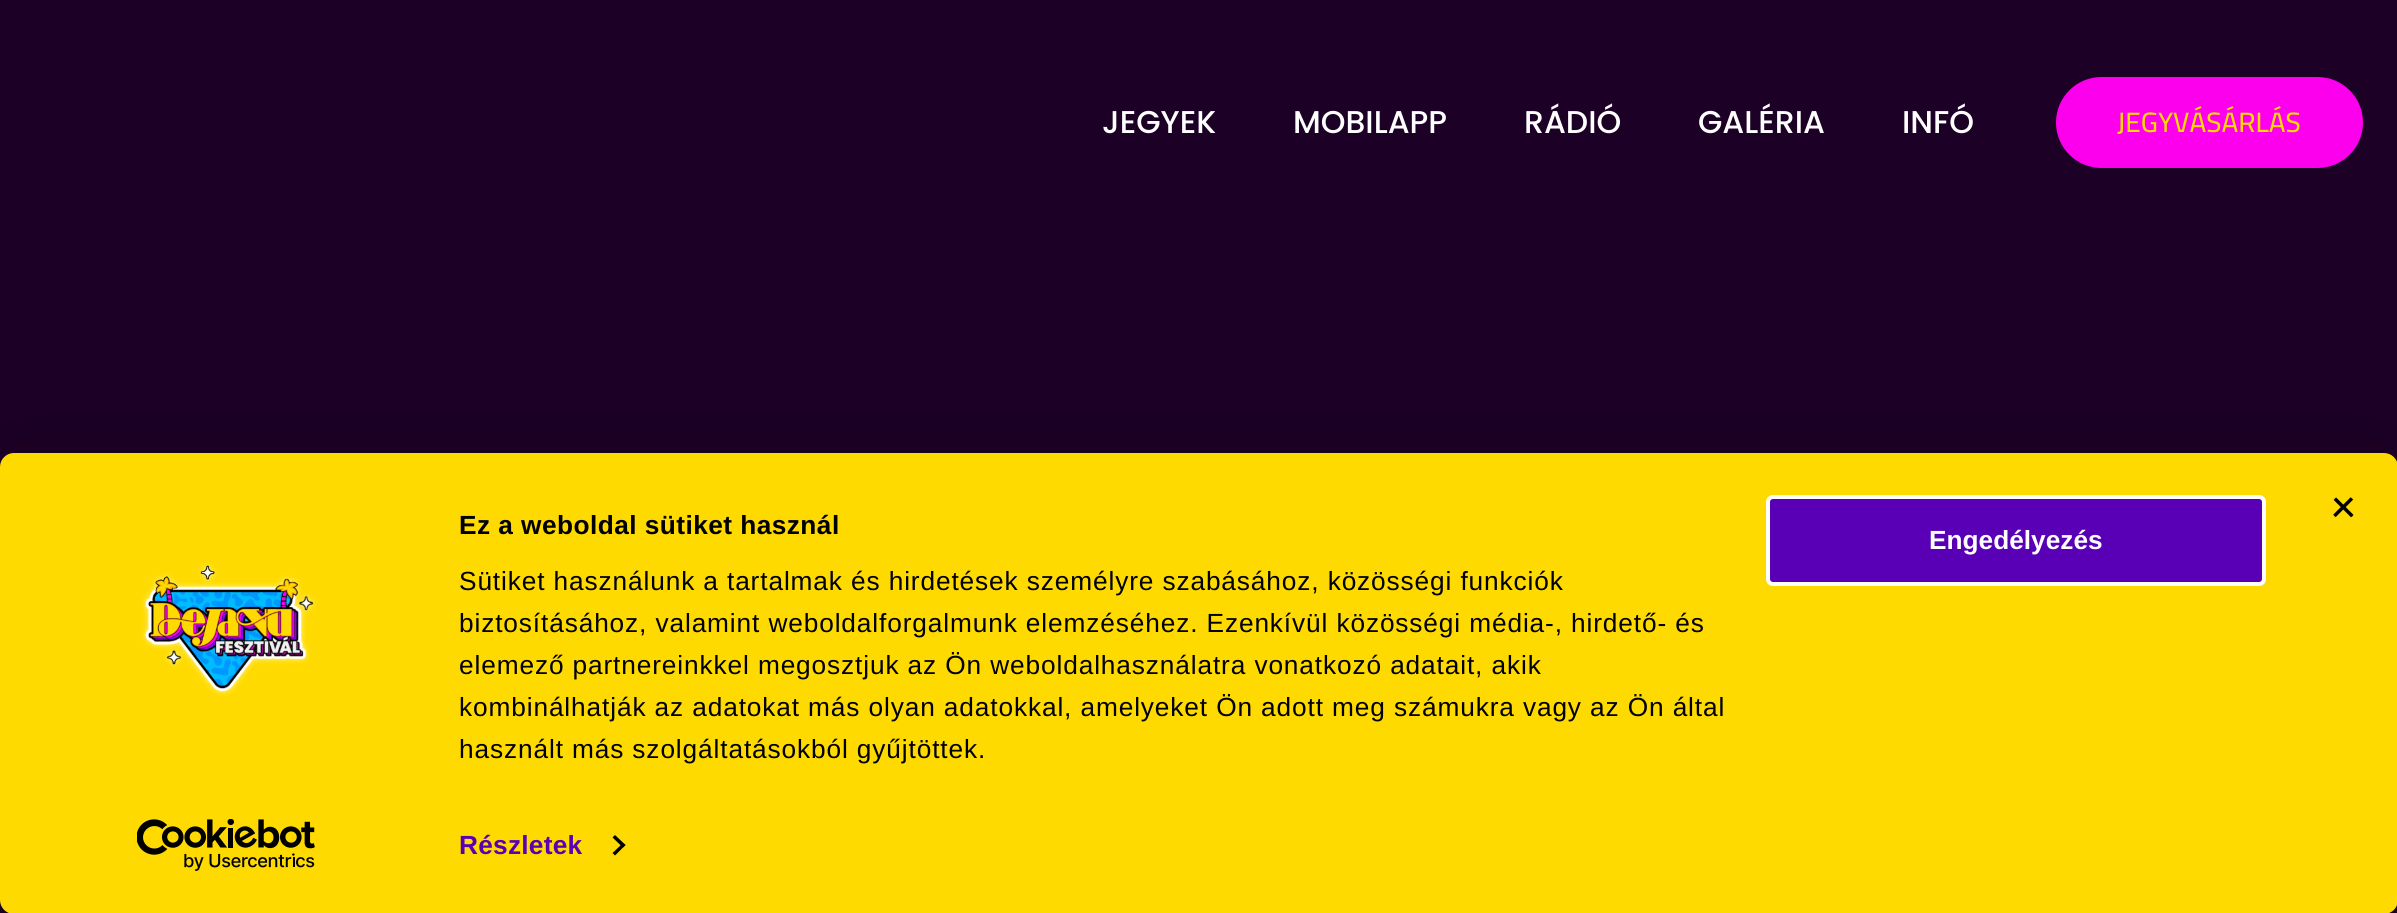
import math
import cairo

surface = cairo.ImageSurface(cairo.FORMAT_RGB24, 2397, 913)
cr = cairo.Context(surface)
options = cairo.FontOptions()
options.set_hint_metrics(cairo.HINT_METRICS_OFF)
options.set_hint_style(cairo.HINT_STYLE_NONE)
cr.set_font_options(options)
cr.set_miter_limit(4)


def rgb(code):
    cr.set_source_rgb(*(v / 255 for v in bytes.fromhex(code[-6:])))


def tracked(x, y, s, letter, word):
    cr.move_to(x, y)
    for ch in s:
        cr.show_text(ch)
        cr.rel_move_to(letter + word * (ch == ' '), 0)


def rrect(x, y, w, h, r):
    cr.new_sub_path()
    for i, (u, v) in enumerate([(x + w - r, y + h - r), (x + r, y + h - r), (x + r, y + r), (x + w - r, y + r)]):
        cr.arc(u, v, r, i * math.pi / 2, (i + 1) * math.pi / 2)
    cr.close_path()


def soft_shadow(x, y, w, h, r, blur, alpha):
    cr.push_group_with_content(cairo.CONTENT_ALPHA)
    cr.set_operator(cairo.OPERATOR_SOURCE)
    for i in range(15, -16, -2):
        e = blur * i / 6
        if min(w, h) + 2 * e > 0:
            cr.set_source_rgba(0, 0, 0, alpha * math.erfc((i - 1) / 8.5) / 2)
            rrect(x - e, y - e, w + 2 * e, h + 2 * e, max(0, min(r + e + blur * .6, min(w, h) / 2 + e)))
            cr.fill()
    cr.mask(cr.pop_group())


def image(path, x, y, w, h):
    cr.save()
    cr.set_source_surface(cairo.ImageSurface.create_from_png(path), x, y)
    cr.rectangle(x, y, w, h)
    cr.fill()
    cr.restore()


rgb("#1c0026")
cr.paint()
rgb("#fc00ee")
rrect(2056, 77, 307, 91, 45.5)
cr.fill()
rgb("#000000")
soft_shadow(0, 506, 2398, 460, 14, 61, 0.3)
rgb("#ffda00")
rrect(0, 453, 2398, 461, 14)
cr.fill()
image("img/1.png", 2333, 497, 21, 21)
rgb("#000000")
cr.new_path()
cr.move_to(615, 835)
cr.line_to(625.5, 845)
cr.line_to(623, 847.5)
cr.line_to(612.5, 837.5)
cr.close_path()
cr.fill()
cr.new_path()
cr.move_to(623, 843)
cr.line_to(625.5, 845)
cr.line_to(615, 855.5)
cr.line_to(612.5, 853)
cr.close_path()
cr.fill()
rgb("#5900b7")
rrect(1768, 497, 496, 87, 5)
cr.fill_preserve()
rgb("#ffffff")
cr.set_line_width(4)
cr.stroke()
image("img/2.png", 141, 562, 176, 134)
image("img/3.png", 137, 819, 178, 52)
cr.select_font_face("Poppins Medium")
cr.set_font_size(31.5)
for x, y, s in [
    (1102, 133, "JEGYEK"),
    (1293, 133, "MOBILAPP"),
    (1524, 133, "RÁDIÓ"),
    (1698, 133, "GALÉRIA"),
    (1902, 133, "INFÓ"),
]:
    cr.move_to(x, y)
    cr.show_text(s)
cr.select_font_face("Cairo Medium")
cr.set_font_size(28)
rgb("#ffda00")
cr.move_to(2117, 132)
cr.show_text("JEGYVÁSÁRLÁS")
cr.select_font_face("Liberation Sans", cairo.FONT_SLANT_NORMAL, cairo.FONT_WEIGHT_BOLD)
cr.set_font_size(26.25)
rgb("#000000")
tracked(459, 534, "Ez a weboldal sütiket használ", 0.45, 0)
cr.select_font_face("Liberation Sans")
for x, y, s in [
    (459, 590, "Sütiket használunk a tartalmak és hirdetések személyre szabásához, közösségi funkciók"),
    (459, 632, "biztosításához, valamint weboldalforgalmunk elemzéséhez. Ezenkívül közösségi média-, hirdető- és"),
    (459, 674, "elemező partnereinkkel megosztjuk az Ön weboldalhasználatra vonatkozó adatait, akik"),
    (459, 716, "kombinálhatják az adatokat más olyan adatokkal, amelyeket Ön adott meg számukra vagy az Ön által"),
    (459, 758, "használt más szolgáltatásokból gyűjtöttek."),
]:
    tracked(x, y, s, 0.88, 0)
cr.select_font_face("Liberation Sans", cairo.FONT_SLANT_NORMAL, cairo.FONT_WEIGHT_BOLD)
rgb("#5900b7")
tracked(459, 854, "Részletek", 0.25, 0)
rgb("#ffffff")
cr.move_to(1929, 549)
cr.show_text("Engedélyezés")
surface.write_to_png("page.png")
